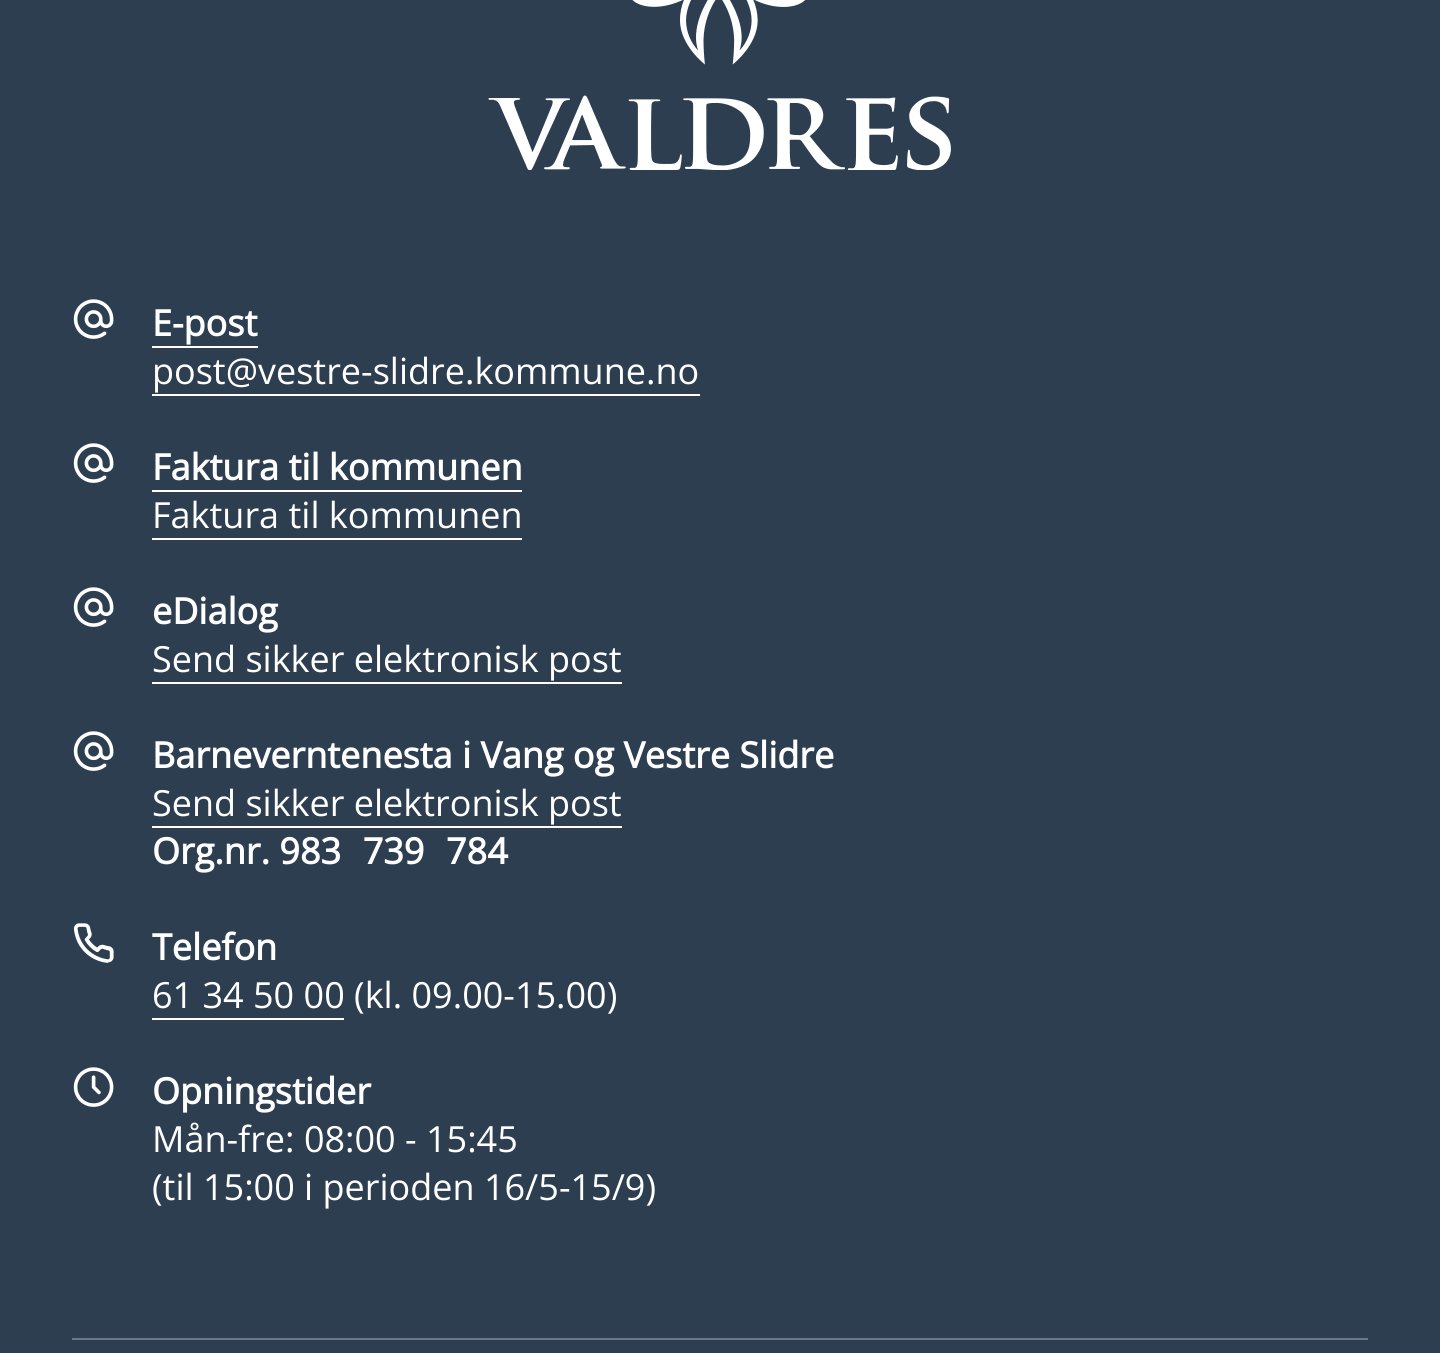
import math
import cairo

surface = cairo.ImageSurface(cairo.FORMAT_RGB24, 1440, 1353)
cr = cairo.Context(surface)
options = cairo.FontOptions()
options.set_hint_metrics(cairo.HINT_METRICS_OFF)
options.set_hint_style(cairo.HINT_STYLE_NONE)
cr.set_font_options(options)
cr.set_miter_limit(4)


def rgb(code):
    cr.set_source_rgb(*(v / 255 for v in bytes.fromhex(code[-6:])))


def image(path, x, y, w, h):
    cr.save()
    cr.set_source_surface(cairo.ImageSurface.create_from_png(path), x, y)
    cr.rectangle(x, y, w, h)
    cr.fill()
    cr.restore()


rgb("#2d3e50")
cr.paint()
image("img/1.png", 488, 0, 463, 170)
image("img/2.png", 73, 299, 41, 40)
rgb("#ffffff")
cr.rectangle(152, 346, 106, 2)
cr.fill()
cr.rectangle(152, 394, 548, 2)
cr.fill()
image("img/2.png", 73, 443, 41, 40)
cr.rectangle(152, 490, 370, 2)
cr.fill()
cr.rectangle(152, 538, 370, 2)
cr.fill()
image("img/2.png", 73, 587, 41, 40)
cr.rectangle(152, 682, 470, 2)
cr.fill()
image("img/2.png", 73, 731, 41, 40)
cr.rectangle(152, 826, 470, 2)
cr.fill()
image("img/3.png", 73, 923, 41, 40)
cr.rectangle(152, 1018, 192, 2)
cr.fill()
image("img/4.png", 73, 1067, 41, 40)
rgb("#6c7885")
cr.rectangle(72, 1338, 1296, 2)
cr.fill()
cr.select_font_face("Open Sans", cairo.FONT_SLANT_NORMAL, cairo.FONT_WEIGHT_BOLD)
cr.set_font_size(36)
rgb("#ffffff")
cr.move_to(152, 336)
cr.show_text("E-post")
cr.select_font_face("Open Sans")
cr.move_to(152, 384)
cr.show_text("post@vestre-slidre.kommune.no")
cr.select_font_face("Open Sans", cairo.FONT_SLANT_NORMAL, cairo.FONT_WEIGHT_BOLD)
cr.move_to(152, 480)
cr.show_text("Faktura til kommunen")
cr.select_font_face("Open Sans")
cr.move_to(152, 528)
cr.show_text("Faktura til kommunen")
cr.select_font_face("Open Sans", cairo.FONT_SLANT_NORMAL, cairo.FONT_WEIGHT_BOLD)
cr.move_to(152, 624)
cr.show_text("eDialog")
cr.select_font_face("Open Sans")
cr.move_to(152, 672)
cr.show_text("Send sikker elektronisk post")
cr.select_font_face("Open Sans", cairo.FONT_SLANT_NORMAL, cairo.FONT_WEIGHT_BOLD)
cr.move_to(152, 768)
cr.show_text("Barneverntenesta i Vang og Vestre Slidre")
cr.select_font_face("Open Sans")
cr.move_to(152, 816)
cr.show_text("Send sikker elektronisk post")
cr.select_font_face("Open Sans", cairo.FONT_SLANT_NORMAL, cairo.FONT_WEIGHT_BOLD)
cr.move_to(152, 864)
cr.show_text("Org.nr. 983 739 784")
cr.move_to(152, 960)
cr.show_text("Telefon")
cr.select_font_face("Open Sans")
cr.move_to(152, 1008)
cr.show_text("61 34 50 00 (kl. 09.00-15.00)")
cr.select_font_face("Open Sans", cairo.FONT_SLANT_NORMAL, cairo.FONT_WEIGHT_BOLD)
cr.move_to(152, 1104)
cr.show_text("Opningstider")
cr.select_font_face("Open Sans")
cr.move_to(152, 1152)
cr.show_text("Mån-fre: 08:00 - 15:45")
cr.move_to(152, 1200)
cr.show_text("(til 15:00 i perioden 16/5-15/9)")
surface.write_to_png("page.png")
